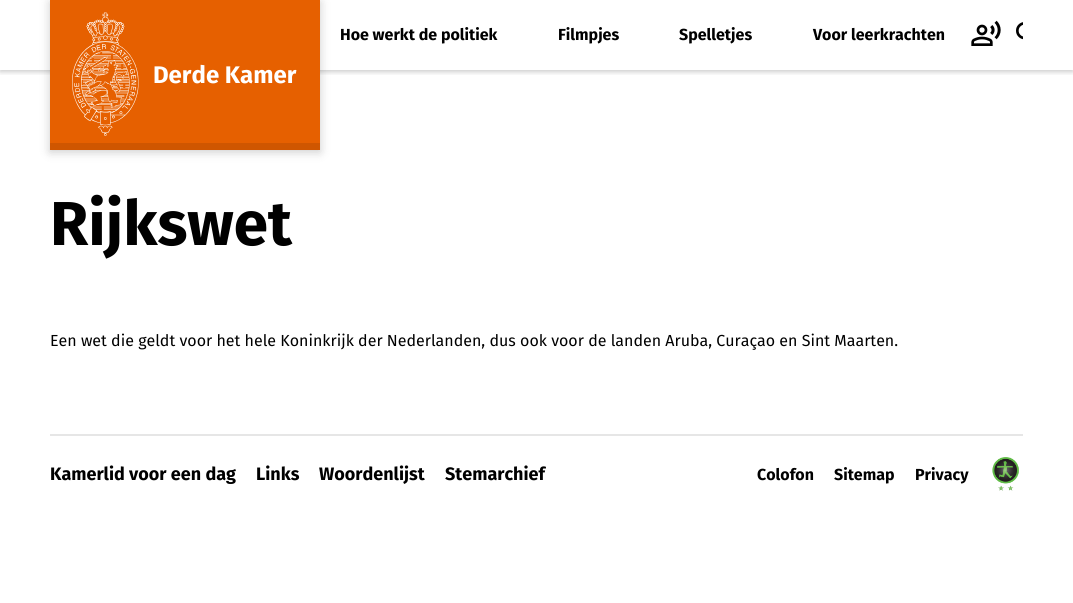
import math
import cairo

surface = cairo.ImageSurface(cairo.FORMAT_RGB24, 1073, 603)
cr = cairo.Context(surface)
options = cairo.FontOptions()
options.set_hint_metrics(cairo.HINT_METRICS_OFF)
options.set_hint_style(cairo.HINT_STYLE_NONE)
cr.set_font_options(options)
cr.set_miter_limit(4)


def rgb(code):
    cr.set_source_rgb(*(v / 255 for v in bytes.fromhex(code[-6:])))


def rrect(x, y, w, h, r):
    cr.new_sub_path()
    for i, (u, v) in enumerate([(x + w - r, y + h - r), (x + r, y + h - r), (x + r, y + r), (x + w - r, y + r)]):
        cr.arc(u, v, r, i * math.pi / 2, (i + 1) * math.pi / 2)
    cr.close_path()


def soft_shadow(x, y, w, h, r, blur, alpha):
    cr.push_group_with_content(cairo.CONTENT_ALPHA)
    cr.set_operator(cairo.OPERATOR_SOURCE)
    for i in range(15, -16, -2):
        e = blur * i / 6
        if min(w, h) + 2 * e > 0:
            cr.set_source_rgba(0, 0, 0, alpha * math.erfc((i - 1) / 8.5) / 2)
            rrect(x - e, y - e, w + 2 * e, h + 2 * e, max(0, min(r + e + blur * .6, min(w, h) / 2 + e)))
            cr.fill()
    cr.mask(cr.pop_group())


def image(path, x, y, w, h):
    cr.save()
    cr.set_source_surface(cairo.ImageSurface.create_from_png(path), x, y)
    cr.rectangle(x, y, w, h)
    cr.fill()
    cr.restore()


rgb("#ffffff")
cr.paint()
cr.save()
cr.rectangle(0, 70, 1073, 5)
cr.clip()
rgb("#000000")
soft_shadow(0, 2, 1073, 70, 0, 2.5, 0.2)
cr.restore()
image("img/1.png", 971, 20, 30, 26)
image("img/2.png", 1016, 22, 7, 18)
rgb("#000000")
soft_shadow(50, 2, 270, 150, 0, 5, 0.2)
rgb("#e66000")
cr.rectangle(50, 0, 270, 143)
cr.fill()
rgb("#cf5600")
cr.rectangle(50, 143, 270, 7)
cr.fill()
image("img/3.png", 72, 12, 67, 124)
rgb("#e6e6e6")
cr.rectangle(50, 434, 973, 2)
cr.fill()
image("img/4.png", 992, 457, 27, 34)
cr.select_font_face("Fira Sans", cairo.FONT_SLANT_NORMAL, cairo.FONT_WEIGHT_BOLD)
cr.set_font_size(16)
rgb("#000000")
for x, y, s in [
    (340, 40, "Hoe werkt de politiek"),
    (558, 40, "Filmpjes"),
    (679, 40, "Spelletjes"),
    (813, 40, "Voor leerkrachten"),
]:
    cr.move_to(x, y)
    cr.show_text(s)
cr.set_font_size(24)
rgb("#ffffff")
cr.move_to(153, 83)
cr.show_text("Derde Kamer")
cr.set_font_size(62)
rgb("#000000")
cr.move_to(50, 245)
cr.show_text("Rijkswet")
cr.select_font_face("Fira Sans")
cr.set_font_size(16)
cr.move_to(50, 346)
cr.show_text("Een wet die geldt voor het hele Koninkrijk der Nederlanden, dus ook voor de landen Aruba, Curaçao en Sint Maarten.")
cr.select_font_face("Fira Sans", cairo.FONT_SLANT_NORMAL, cairo.FONT_WEIGHT_BOLD)
cr.set_font_size(18)
for x, y, s in [
    (50, 480, "Kamerlid voor een dag"),
    (256, 480, "Links"),
    (319, 480, "Woordenlijst"),
    (445, 480, "Stemarchief"),
]:
    cr.move_to(x, y)
    cr.show_text(s)
cr.set_font_size(16)
for x, y, s in [
    (757, 480, "Colofon"),
    (834, 480, "Sitemap"),
    (915, 480, "Privacy"),
]:
    cr.move_to(x, y)
    cr.show_text(s)
surface.write_to_png("page.png")
